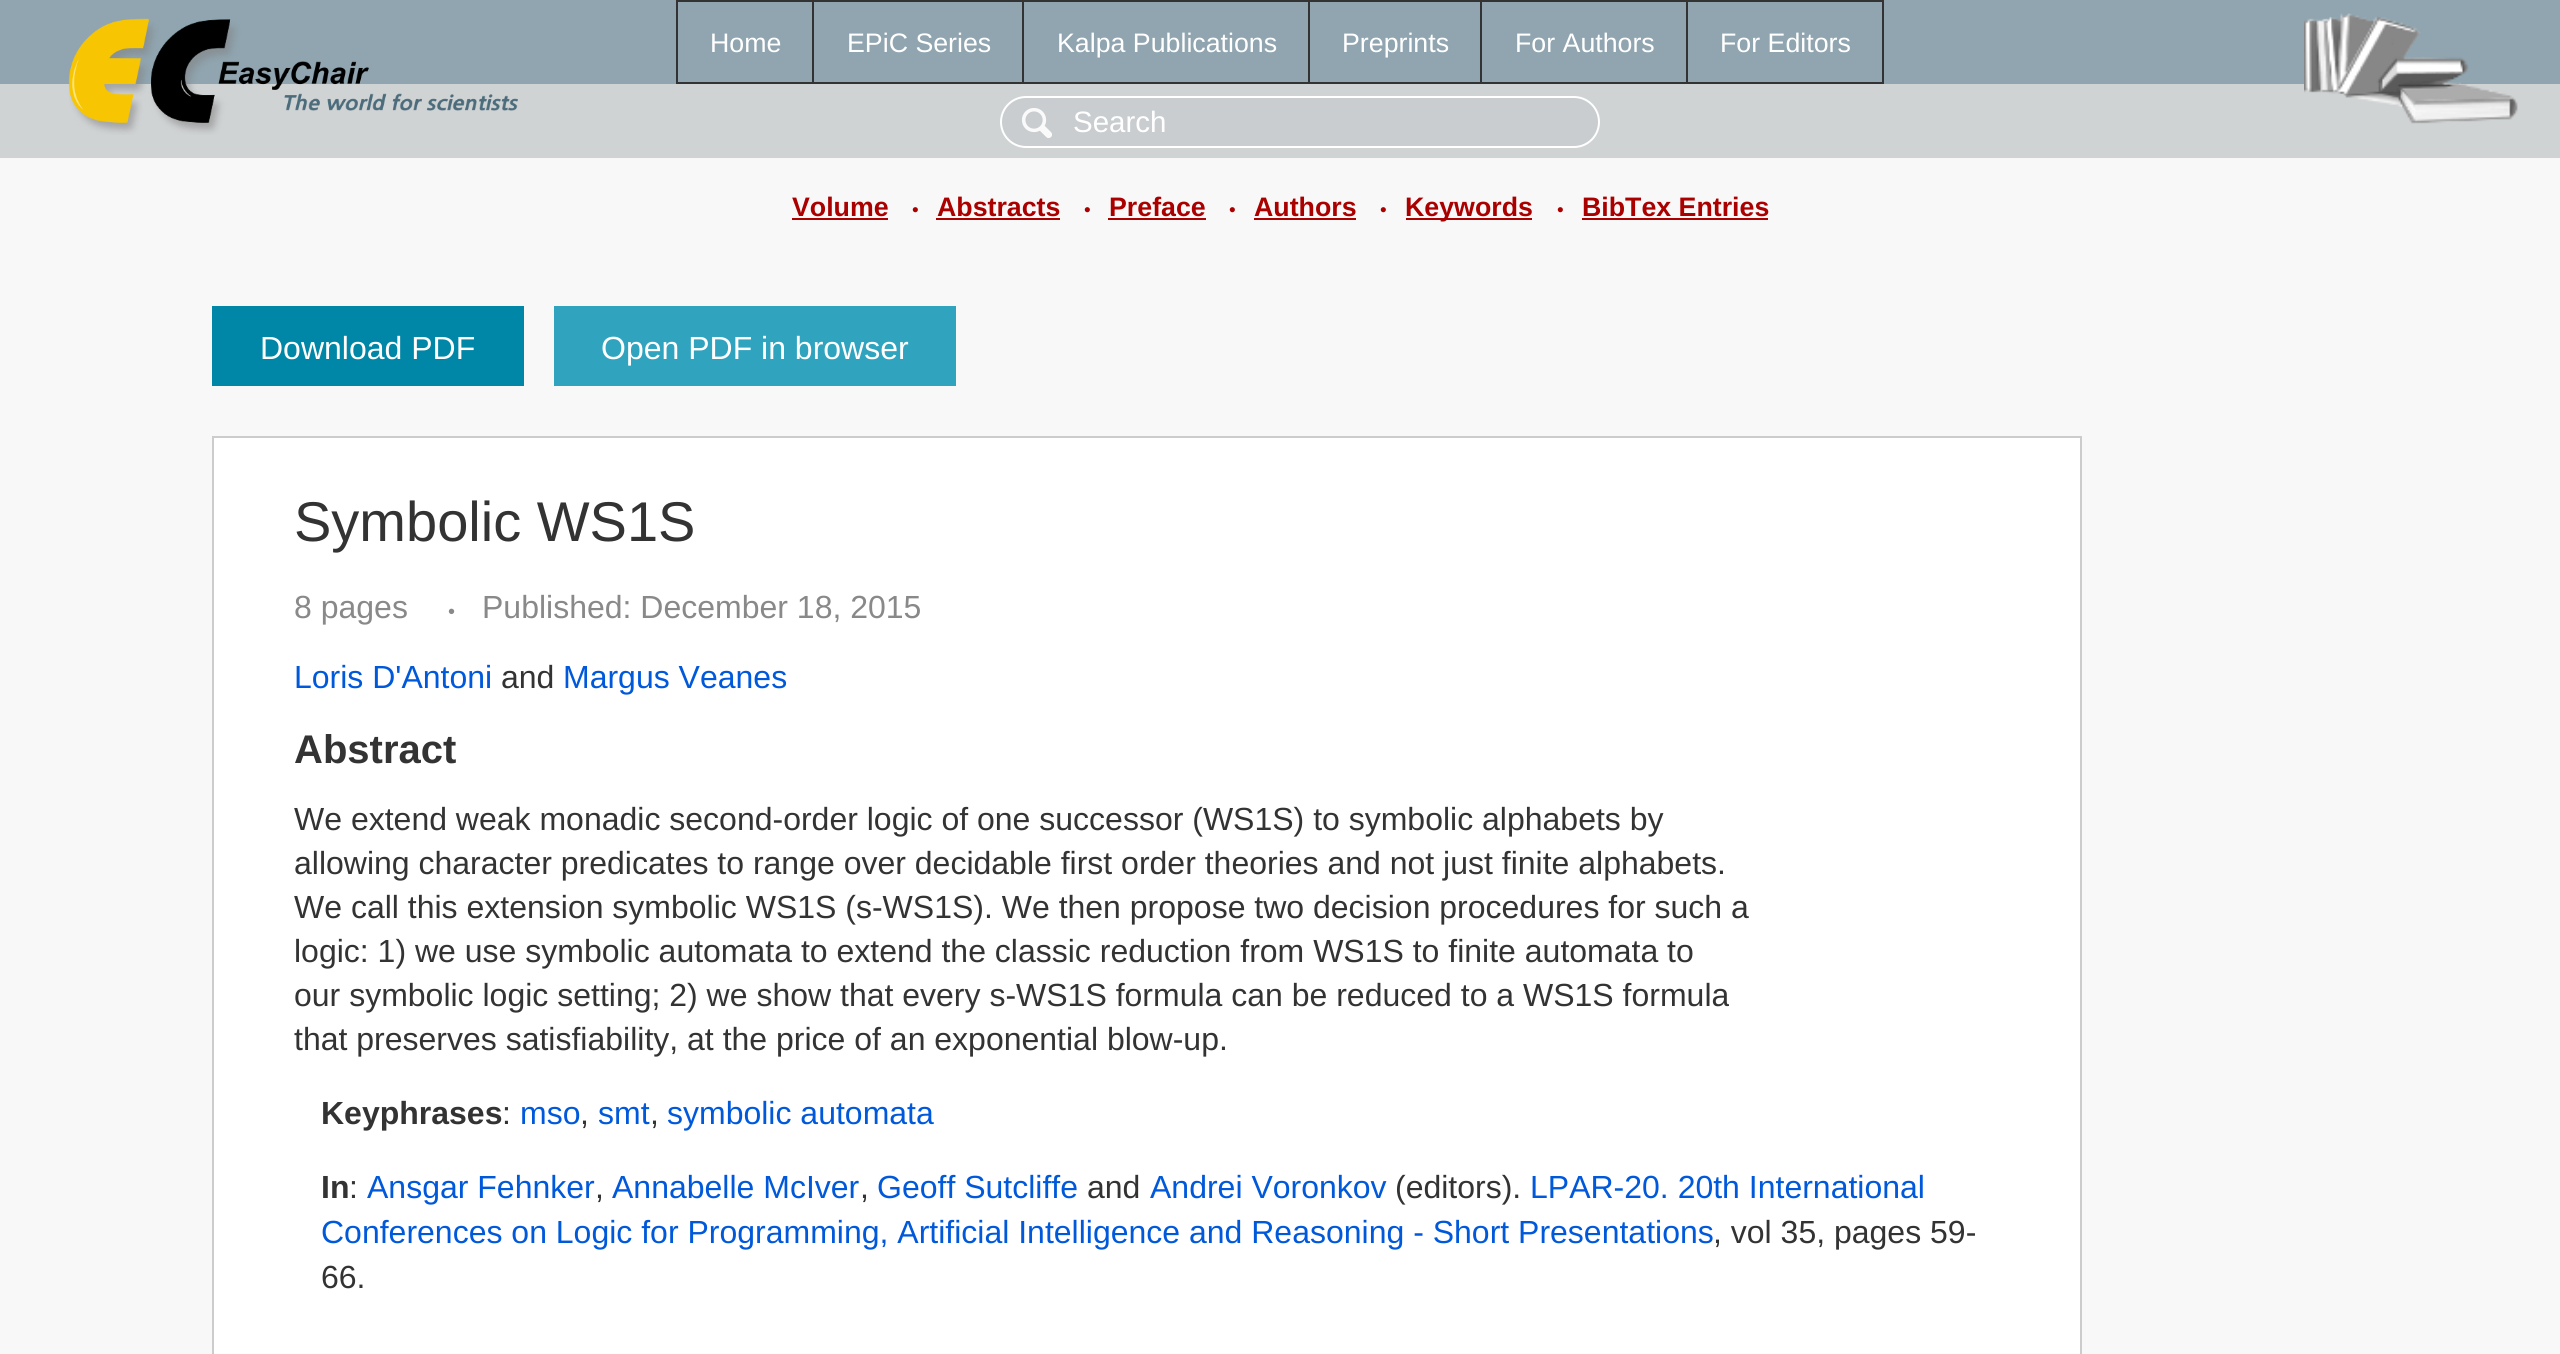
import math
import cairo

surface = cairo.ImageSurface(cairo.FORMAT_RGB24, 2560, 1354)
cr = cairo.Context(surface)
options = cairo.FontOptions()
options.set_hint_metrics(cairo.HINT_METRICS_OFF)
options.set_hint_style(cairo.HINT_STYLE_NONE)
cr.set_font_options(options)
cr.set_miter_limit(4)


def rgb(code):
    cr.set_source_rgb(*(v / 255 for v in bytes.fromhex(code[-6:])))


def rrect(x, y, w, h, r):
    cr.new_sub_path()
    for i, (u, v) in enumerate([(x + w - r, y + h - r), (x + r, y + h - r), (x + r, y + r), (x + w - r, y + r)]):
        cr.arc(u, v, r, i * math.pi / 2, (i + 1) * math.pi / 2)
    cr.close_path()


def image(path, x, y, w, h):
    cr.save()
    cr.set_source_surface(cairo.ImageSurface.create_from_png(path), x, y)
    cr.rectangle(x, y, w, h)
    cr.fill()
    cr.restore()


rgb("#90a5b0")
cr.paint()
rgb("#d0d3d4")
cr.rectangle(0, 86, 2558, 70)
cr.fill()
cr.rectangle(0, 84, 2560, 2)
cr.fill()
image("img/1.png", 68, 18, 450, 117)
for x, y, w, h, color in [
    (1686, 0, 198, 2, "#333333"),
    (1882, 0, 2, 84, "#333333"),
    (1686, 82, 198, 2, "#333333"),
    (1686, 0, 2, 84, "#333333"),
    (1480, 0, 208, 2, "#333333"),
    (1480, 82, 208, 2, "#333333"),
    (1480, 0, 2, 84, "#333333"),
    (1308, 0, 174, 2, "#333333"),
    (1308, 82, 174, 2, "#333333"),
    (1308, 0, 2, 84, "#333333"),
    (1022, 0, 288, 2, "#333333"),
    (1022, 82, 288, 2, "#333333"),
    (1022, 0, 2, 84, "#333333"),
    (812, 0, 212, 2, "#333333"),
    (812, 82, 212, 2, "#333333"),
    (812, 0, 2, 84, "#333333"),
    (676, 0, 138, 2, "#333333"),
    (676, 82, 138, 2, "#333333"),
    (676, 0, 2, 84, "#333333"),
]:
    rgb(color)
    cr.rectangle(x, y, w, h)
    cr.fill()
image("img/2.png", 2304, 13, 214, 111)
rgb("#d0d3d4")
cr.rectangle(2558, 84, 2, 74)
cr.fill()
cr.rectangle(0, 156, 2560, 2)
cr.fill()
rgb("#c9cdd0")
rrect(1000, 96, 600, 52, 26)
cr.fill()
image("img/3.png", 1022, 108, 30, 30)
rrect(1001, 97, 598, 50, 25)
rgb("#ffffff")
cr.stroke()
for x, y, w, h, color in [
    (0, 158, 2560, 1196, "#f8f8f8"),
    (792, 218, 96, 2, "#aa0000"),
    (936, 218, 124, 2, "#aa0000"),
    (1108, 218, 98, 2, "#aa0000"),
    (1254, 218, 102, 2, "#aa0000"),
    (1406, 218, 126, 2, "#aa0000"),
    (1582, 218, 186, 2, "#aa0000"),
    (212, 306, 312, 80, "#0086a6"),
    (554, 306, 402, 80, "#30a4bf"),
]:
    rgb(color)
    cr.rectangle(x, y, w, h)
    cr.fill()
rgb("#ffffff")
cr.rectangle(213, 437, 1868, 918)
cr.fill_preserve()
rgb("#cccccc")
cr.stroke()
cr.select_font_face("Liberation Sans")
cr.set_font_size(26.75)
rgb("#ffffff")
for x, y, s in [
    (710, 52, "Home"),
    (847, 52, "EPiC Series"),
    (1057, 52, "Kalpa Publications"),
    (1342, 52, "Preprints"),
    (1515, 52, "For Authors"),
    (1720, 52, "For Editors"),
]:
    cr.move_to(x, y)
    cr.show_text(s)
cr.set_font_size(29.5)
cr.move_to(1073, 132)
cr.show_text("Search")
cr.select_font_face("Liberation Sans", cairo.FONT_SLANT_NORMAL, cairo.FONT_WEIGHT_BOLD)
cr.set_font_size(26.75)
rgb("#aa0000")
cr.move_to(792, 216)
cr.show_text("Volume")
cr.select_font_face("Liberation Sans")
cr.set_font_size(19)
cr.move_to(912, 216)
cr.show_text("•")
cr.select_font_face("Liberation Sans", cairo.FONT_SLANT_NORMAL, cairo.FONT_WEIGHT_BOLD)
cr.set_font_size(26.75)
cr.move_to(937, 216)
cr.show_text("Abstracts")
cr.select_font_face("Liberation Sans")
cr.set_font_size(19)
cr.move_to(1084, 216)
cr.show_text("•")
cr.select_font_face("Liberation Sans", cairo.FONT_SLANT_NORMAL, cairo.FONT_WEIGHT_BOLD)
cr.set_font_size(26.75)
cr.move_to(1109, 216)
cr.show_text("Preface")
cr.select_font_face("Liberation Sans")
cr.set_font_size(19)
cr.move_to(1229, 216)
cr.show_text("•")
cr.select_font_face("Liberation Sans", cairo.FONT_SLANT_NORMAL, cairo.FONT_WEIGHT_BOLD)
cr.set_font_size(26.75)
cr.move_to(1254, 216)
cr.show_text("Authors")
cr.select_font_face("Liberation Sans")
cr.set_font_size(19)
cr.move_to(1380, 216)
cr.show_text("•")
cr.select_font_face("Liberation Sans", cairo.FONT_SLANT_NORMAL, cairo.FONT_WEIGHT_BOLD)
cr.set_font_size(26.75)
cr.move_to(1405, 216)
cr.show_text("Keywords")
cr.select_font_face("Liberation Sans")
cr.set_font_size(19)
cr.move_to(1557, 216)
cr.show_text("•")
cr.select_font_face("Liberation Sans", cairo.FONT_SLANT_NORMAL, cairo.FONT_WEIGHT_BOLD)
cr.set_font_size(26.75)
cr.move_to(1582, 216)
cr.show_text("BibTex Entries")
cr.select_font_face("Liberation Sans")
cr.set_font_size(32)
rgb("#ffffff")
cr.move_to(260, 359)
cr.show_text("Download PDF")
cr.move_to(601, 359)
cr.show_text("Open PDF in browser")
cr.set_font_size(56)
rgb("#333333")
cr.move_to(294, 541)
cr.show_text("Symbolic WS1S")
cr.set_font_size(32)
rgb("#898989")
cr.move_to(294, 618)
cr.show_text("8 pages")
cr.set_font_size(20)
cr.move_to(448, 618)
cr.show_text("•")
cr.set_font_size(32)
cr.move_to(482, 618)
cr.show_text("Published: December 18, 2015")
rgb("#0059db")
cr.move_to(294, 688)
cr.show_text("Loris D'Antoni")
rgb("#333333")
cr.move_to(501, 688)
cr.show_text("and")
rgb("#0059db")
cr.move_to(563, 688)
cr.show_text("Margus Veanes")
cr.select_font_face("Liberation Sans", cairo.FONT_SLANT_NORMAL, cairo.FONT_WEIGHT_BOLD)
cr.set_font_size(40)
rgb("#333333")
cr.move_to(294, 763)
cr.show_text("Abstract")
cr.select_font_face("Liberation Sans")
cr.set_font_size(32)
for x, y, s in [
    (294, 830, "We extend weak monadic second-order logic of one successor (WS1S) to symbolic alphabets by"),
    (294, 874, "allowing character predicates to range over decidable first order theories and not just finite alphabets."),
    (294, 918, "We call this extension symbolic WS1S (s-WS1S). We then propose two decision procedures for such a"),
    (294, 962, "logic: 1) we use symbolic automata to extend the classic reduction from WS1S to finite automata to"),
    (294, 1006, "our symbolic logic setting; 2) we show that every s-WS1S formula can be reduced to a WS1S formula"),
    (294, 1050, "that preserves satisfiability, at the price of an exponential blow-up."),
]:
    cr.move_to(x, y)
    cr.show_text(s)
cr.select_font_face("Liberation Sans", cairo.FONT_SLANT_NORMAL, cairo.FONT_WEIGHT_BOLD)
cr.move_to(321, 1124)
cr.show_text("Keyphrases")
cr.select_font_face("Liberation Sans")
cr.move_to(502, 1124)
cr.show_text(":")
rgb("#0059db")
cr.move_to(520, 1124)
cr.show_text("mso")
rgb("#333333")
cr.move_to(580, 1124)
cr.show_text(",")
rgb("#0059db")
cr.move_to(598, 1124)
cr.show_text("smt")
rgb("#333333")
cr.move_to(650, 1124)
cr.show_text(",")
rgb("#0059db")
cr.move_to(667, 1124)
cr.show_text("symbolic automata")
cr.select_font_face("Liberation Sans", cairo.FONT_SLANT_NORMAL, cairo.FONT_WEIGHT_BOLD)
rgb("#333333")
cr.move_to(321, 1198)
cr.show_text("In")
cr.select_font_face("Liberation Sans")
cr.move_to(349, 1198)
cr.show_text(":")
rgb("#0059db")
cr.move_to(367, 1198)
cr.show_text("Ansgar Fehnker")
rgb("#333333")
cr.move_to(595, 1198)
cr.show_text(",")
rgb("#0059db")
cr.move_to(612, 1198)
cr.show_text("Annabelle McIver")
rgb("#333333")
cr.move_to(860, 1198)
cr.show_text(",")
rgb("#0059db")
cr.move_to(877, 1198)
cr.show_text("Geoff Sutcliffe")
rgb("#333333")
cr.move_to(1087, 1198)
cr.show_text("and")
rgb("#0059db")
cr.move_to(1150, 1198)
cr.show_text("Andrei Voronkov")
rgb("#333333")
cr.move_to(1395, 1198)
cr.show_text("(editors).")
rgb("#0059db")
cr.move_to(1530, 1198)
cr.show_text("LPAR-20. 20th International")
cr.move_to(321, 1243)
cr.show_text("Conferences on Logic for Programming, Artificial Intelligence and Reasoning - Short Presentations")
rgb("#333333")
cr.move_to(1713, 1243)
cr.show_text(", vol 35, pages 59-")
cr.move_to(321, 1288)
cr.show_text("66.")
surface.write_to_png("page.png")
